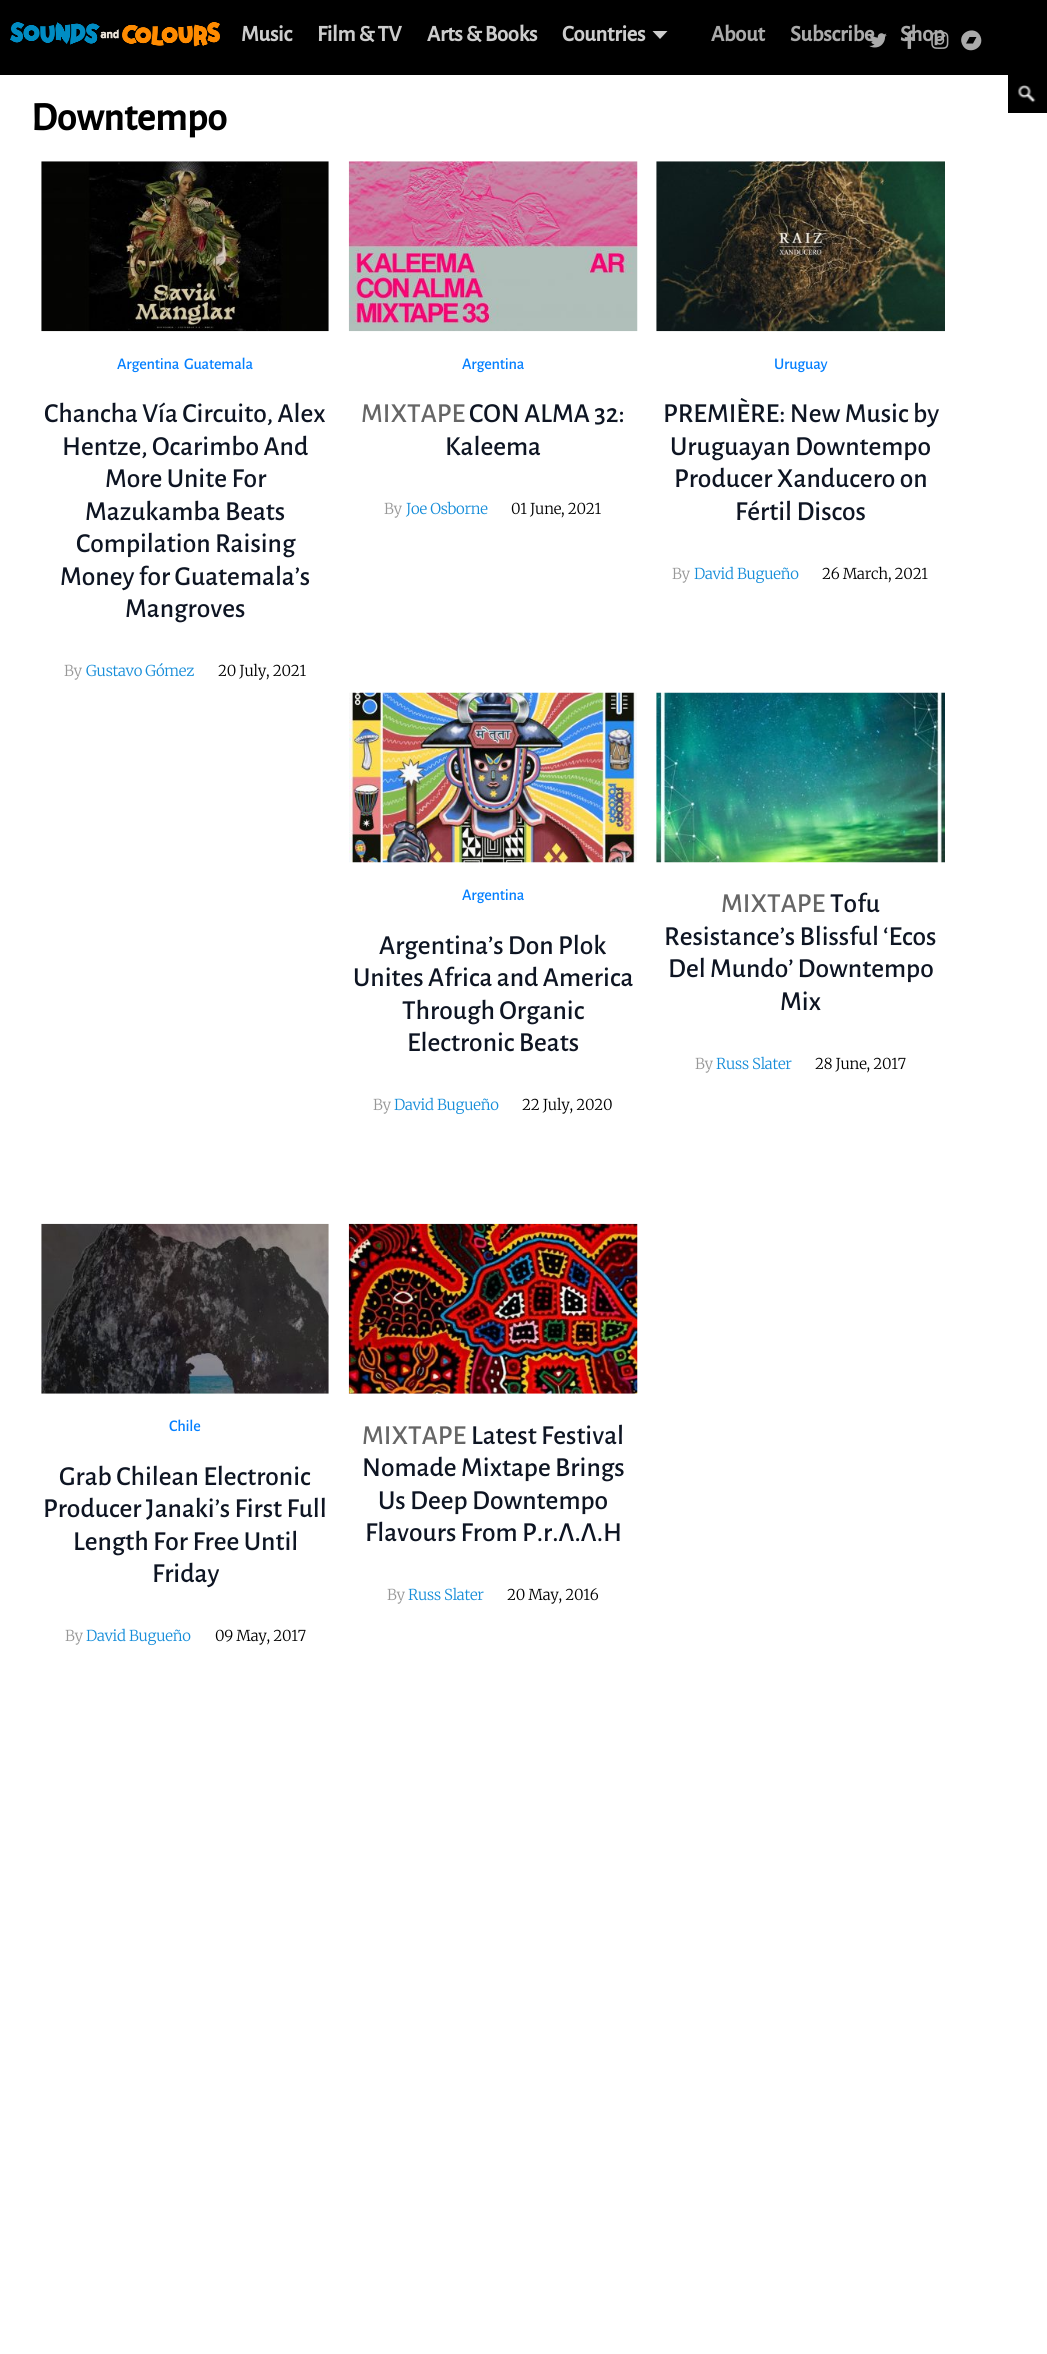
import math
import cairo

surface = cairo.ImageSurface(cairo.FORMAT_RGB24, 1047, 2354)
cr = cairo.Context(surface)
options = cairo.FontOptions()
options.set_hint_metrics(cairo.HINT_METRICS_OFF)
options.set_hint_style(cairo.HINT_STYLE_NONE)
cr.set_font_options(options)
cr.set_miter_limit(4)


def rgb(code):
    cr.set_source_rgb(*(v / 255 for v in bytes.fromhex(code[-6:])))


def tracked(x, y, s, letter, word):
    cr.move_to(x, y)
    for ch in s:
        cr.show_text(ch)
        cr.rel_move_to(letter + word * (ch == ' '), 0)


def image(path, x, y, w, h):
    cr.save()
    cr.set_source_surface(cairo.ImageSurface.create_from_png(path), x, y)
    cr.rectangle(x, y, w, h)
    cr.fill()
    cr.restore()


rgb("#ffffff")
cr.paint()
rgb("#000000")
cr.rectangle(0, 0, 1047, 75)
cr.fill()
image("img/1.png", 10, 22, 210, 25)
rgb("#cccccc")
cr.new_path()
cr.move_to(652.5, 31)
cr.line_to(667.5, 31)
cr.line_to(660, 39)
cr.close_path()
cr.fill()
rgb("#aaaaaa")
cr.new_path()
cr.move_to(973, 43.5)
cr.line_to(976.5, 37)
cr.line_to(969.5, 37)
cr.line_to(966, 43.5)
cr.close_path()
cr.move_to(980.5, 36.5)
cr.curve_to(985.5, 48.5, 967, 56.5, 962, 44)
cr.curve_to(957, 32, 975.5, 24.5, 980.5, 36.5)
cr.close_path()
cr.fill()
rgb("#000000")
cr.rectangle(1008, 75, 39, 38)
cr.fill()
image("img/5.png", 1017, 85, 19, 18)
image("img/6.png", 41, 161, 288, 171)
image("img/7.png", 348, 161, 290, 171)
image("img/8.png", 656, 161, 289, 171)
image("img/9.png", 349, 692, 288, 171)
image("img/10.png", 656, 692, 289, 171)
image("img/11.png", 41, 1223, 288, 171)
image("img/12.png", 348, 1223, 290, 171)
cr.select_font_face("Alegreya Sans", cairo.FONT_SLANT_NORMAL, cairo.FONT_WEIGHT_BOLD)
cr.set_font_size(22.5)
rgb("#cccccc")
for x, y, s in [
    (241, 41, "Music"),
    (317, 41, "Film & TV"),
    (427, 41, "Arts & Books"),
    (562, 41, "Countries"),
]:
    tracked(x, y, s, -0.25, 0)
rgb("#aaaaaa")
for x, y, s in [
    (711, 41, "About"),
    (790, 41, "Subscribe"),
    (900, 41, "Shop"),
]:
    tracked(x, y, s, -0.25, 0)
image("img/2.png", 869, 33, 18, 15)
image("img/3.png", 904, 30, 11, 19)
image("img/4.png", 931, 31, 18, 18)
cr.set_font_size(40)
rgb("#000000")
tracked(31, 130, "Downtempo", -0.25, 0)
cr.select_font_face("Alegreya Sans Medium")
cr.set_font_size(16.25)
rgb("#037fff")
tracked(117, 369, "Argentina", -0.25, 0)
tracked(184, 369, "Guatemala", -0.25, 0)
cr.set_font_size(27.5)
rgb("#0e1523")
for x, y, s in [
    (44, 422, "Chancha Vía Circuito, Alex"),
    (62, 455, "Hentze, Ocarimbo And"),
    (105, 487, "More Unite For"),
    (85, 520, "Mazukamba Beats"),
    (76, 552, "Compilation Raising"),
    (60, 585, "Money for Guatemala’s"),
    (125, 617, "Mangroves"),
]:
    cr.move_to(x, y)
    cr.show_text(s)
cr.select_font_face("Merriweather Light")
cr.set_font_size(15)
rgb("#989898")
tracked(64, 676, "By", -0.25, 0)
rgb("#168dd9")
tracked(86, 676, "Gustavo Gómez", -0.25, 0)
rgb("#000000")
tracked(218, 676, "20 July, 2021", -0.25, 0)
cr.select_font_face("Alegreya Sans Medium")
cr.set_font_size(16.25)
rgb("#037fff")
tracked(462, 369, "Argentina", -0.25, 0)
cr.set_font_size(27.5)
rgb("#666666")
cr.move_to(361, 422)
cr.show_text("MIXTAPE")
rgb("#0e1523")
cr.move_to(469, 422)
cr.show_text("CON ALMA 32:")
cr.move_to(445, 455)
cr.show_text("Kaleema")
cr.select_font_face("Merriweather Light")
cr.set_font_size(15)
rgb("#989898")
tracked(384, 514, "By", -0.25, 0)
rgb("#168dd9")
tracked(406, 514, "Joe Osborne", -0.25, 0)
rgb("#000000")
tracked(511, 514, "01 June, 2021", -0.25, 0)
cr.select_font_face("Alegreya Sans Medium")
cr.set_font_size(16.25)
rgb("#037fff")
tracked(774, 369, "Uruguay", -0.25, 0)
cr.set_font_size(27.5)
rgb("#0e1523")
for x, y, s in [
    (663, 422, "PREMIÈRE: New Music by"),
    (670, 455, "Uruguayan Downtempo"),
    (674, 487, "Producer Xanducero on"),
    (735, 520, "Fértil Discos"),
]:
    cr.move_to(x, y)
    cr.show_text(s)
cr.select_font_face("Merriweather Light")
cr.set_font_size(15)
rgb("#989898")
tracked(672, 579, "By", -0.25, 0)
rgb("#168dd9")
tracked(694, 579, "David Bugueño", -0.25, 0)
rgb("#000000")
tracked(822, 579, "26 March, 2021", -0.25, 0)
cr.select_font_face("Alegreya Sans Medium")
cr.set_font_size(16.25)
rgb("#037fff")
tracked(462, 900, "Argentina", -0.25, 0)
cr.set_font_size(27.5)
rgb("#0e1523")
for x, y, s in [
    (379, 954, "Argentina’s Don Plok"),
    (353, 986, "Unites Africa and America"),
    (402, 1019, "Through Organic"),
    (407, 1051, "Electronic Beats"),
]:
    cr.move_to(x, y)
    cr.show_text(s)
cr.select_font_face("Merriweather Light")
cr.set_font_size(15)
rgb("#989898")
tracked(373, 1110, "By", -0.25, 0)
rgb("#168dd9")
tracked(394, 1110, "David Bugueño", -0.25, 0)
rgb("#000000")
tracked(522, 1110, "22 July, 2020", -0.25, 0)
cr.select_font_face("Alegreya Sans Medium")
cr.set_font_size(27.5)
rgb("#666666")
cr.move_to(721, 912)
cr.show_text("MIXTAPE")
rgb("#0e1523")
for x, y, s in [
    (830, 912, "Tofu"),
    (664, 945, "Resistance’s Blissful ‘Ecos"),
    (668, 977, "Del Mundo’ Downtempo"),
    (780, 1010, "Mix"),
]:
    cr.move_to(x, y)
    cr.show_text(s)
cr.select_font_face("Merriweather Light")
cr.set_font_size(15)
rgb("#989898")
tracked(695, 1069, "By", -0.25, 0)
rgb("#168dd9")
tracked(716, 1069, "Russ Slater", -0.25, 0)
rgb("#000000")
tracked(815, 1069, "28 June, 2017", -0.25, 0)
cr.select_font_face("Alegreya Sans Medium")
cr.set_font_size(16.25)
rgb("#037fff")
tracked(169, 1431, "Chile", -0.25, 0)
cr.set_font_size(27.5)
rgb("#0e1523")
for x, y, s in [
    (59, 1485, "Grab Chilean Electronic"),
    (43, 1517, "Producer Janaki’s First Full"),
    (73, 1550, "Length For Free Until"),
    (152, 1582, "Friday"),
]:
    cr.move_to(x, y)
    cr.show_text(s)
cr.select_font_face("Merriweather Light")
cr.set_font_size(15)
rgb("#989898")
tracked(65, 1641, "By", -0.25, 0)
rgb("#168dd9")
tracked(86, 1641, "David Bugueño", -0.25, 0)
rgb("#000000")
tracked(215, 1641, "09 May, 2017", -0.25, 0)
cr.select_font_face("Alegreya Sans Medium")
cr.set_font_size(27.5)
rgb("#666666")
cr.move_to(362, 1444)
cr.show_text("MIXTAPE")
rgb("#0e1523")
for x, y, s in [
    (471, 1444, "Latest Festival"),
    (362, 1476, "Nomade Mixtape Brings"),
    (378, 1509, "Us Deep Downtempo"),
    (365, 1541, "Flavours From P.r.Λ.Λ.H"),
]:
    cr.move_to(x, y)
    cr.show_text(s)
cr.select_font_face("Merriweather Light")
cr.set_font_size(15)
rgb("#989898")
tracked(387, 1600, "By", -0.25, 0)
rgb("#168dd9")
tracked(408, 1600, "Russ Slater", -0.25, 0)
rgb("#000000")
tracked(507, 1600, "20 May, 2016", -0.25, 0)
surface.write_to_png("page.png")
